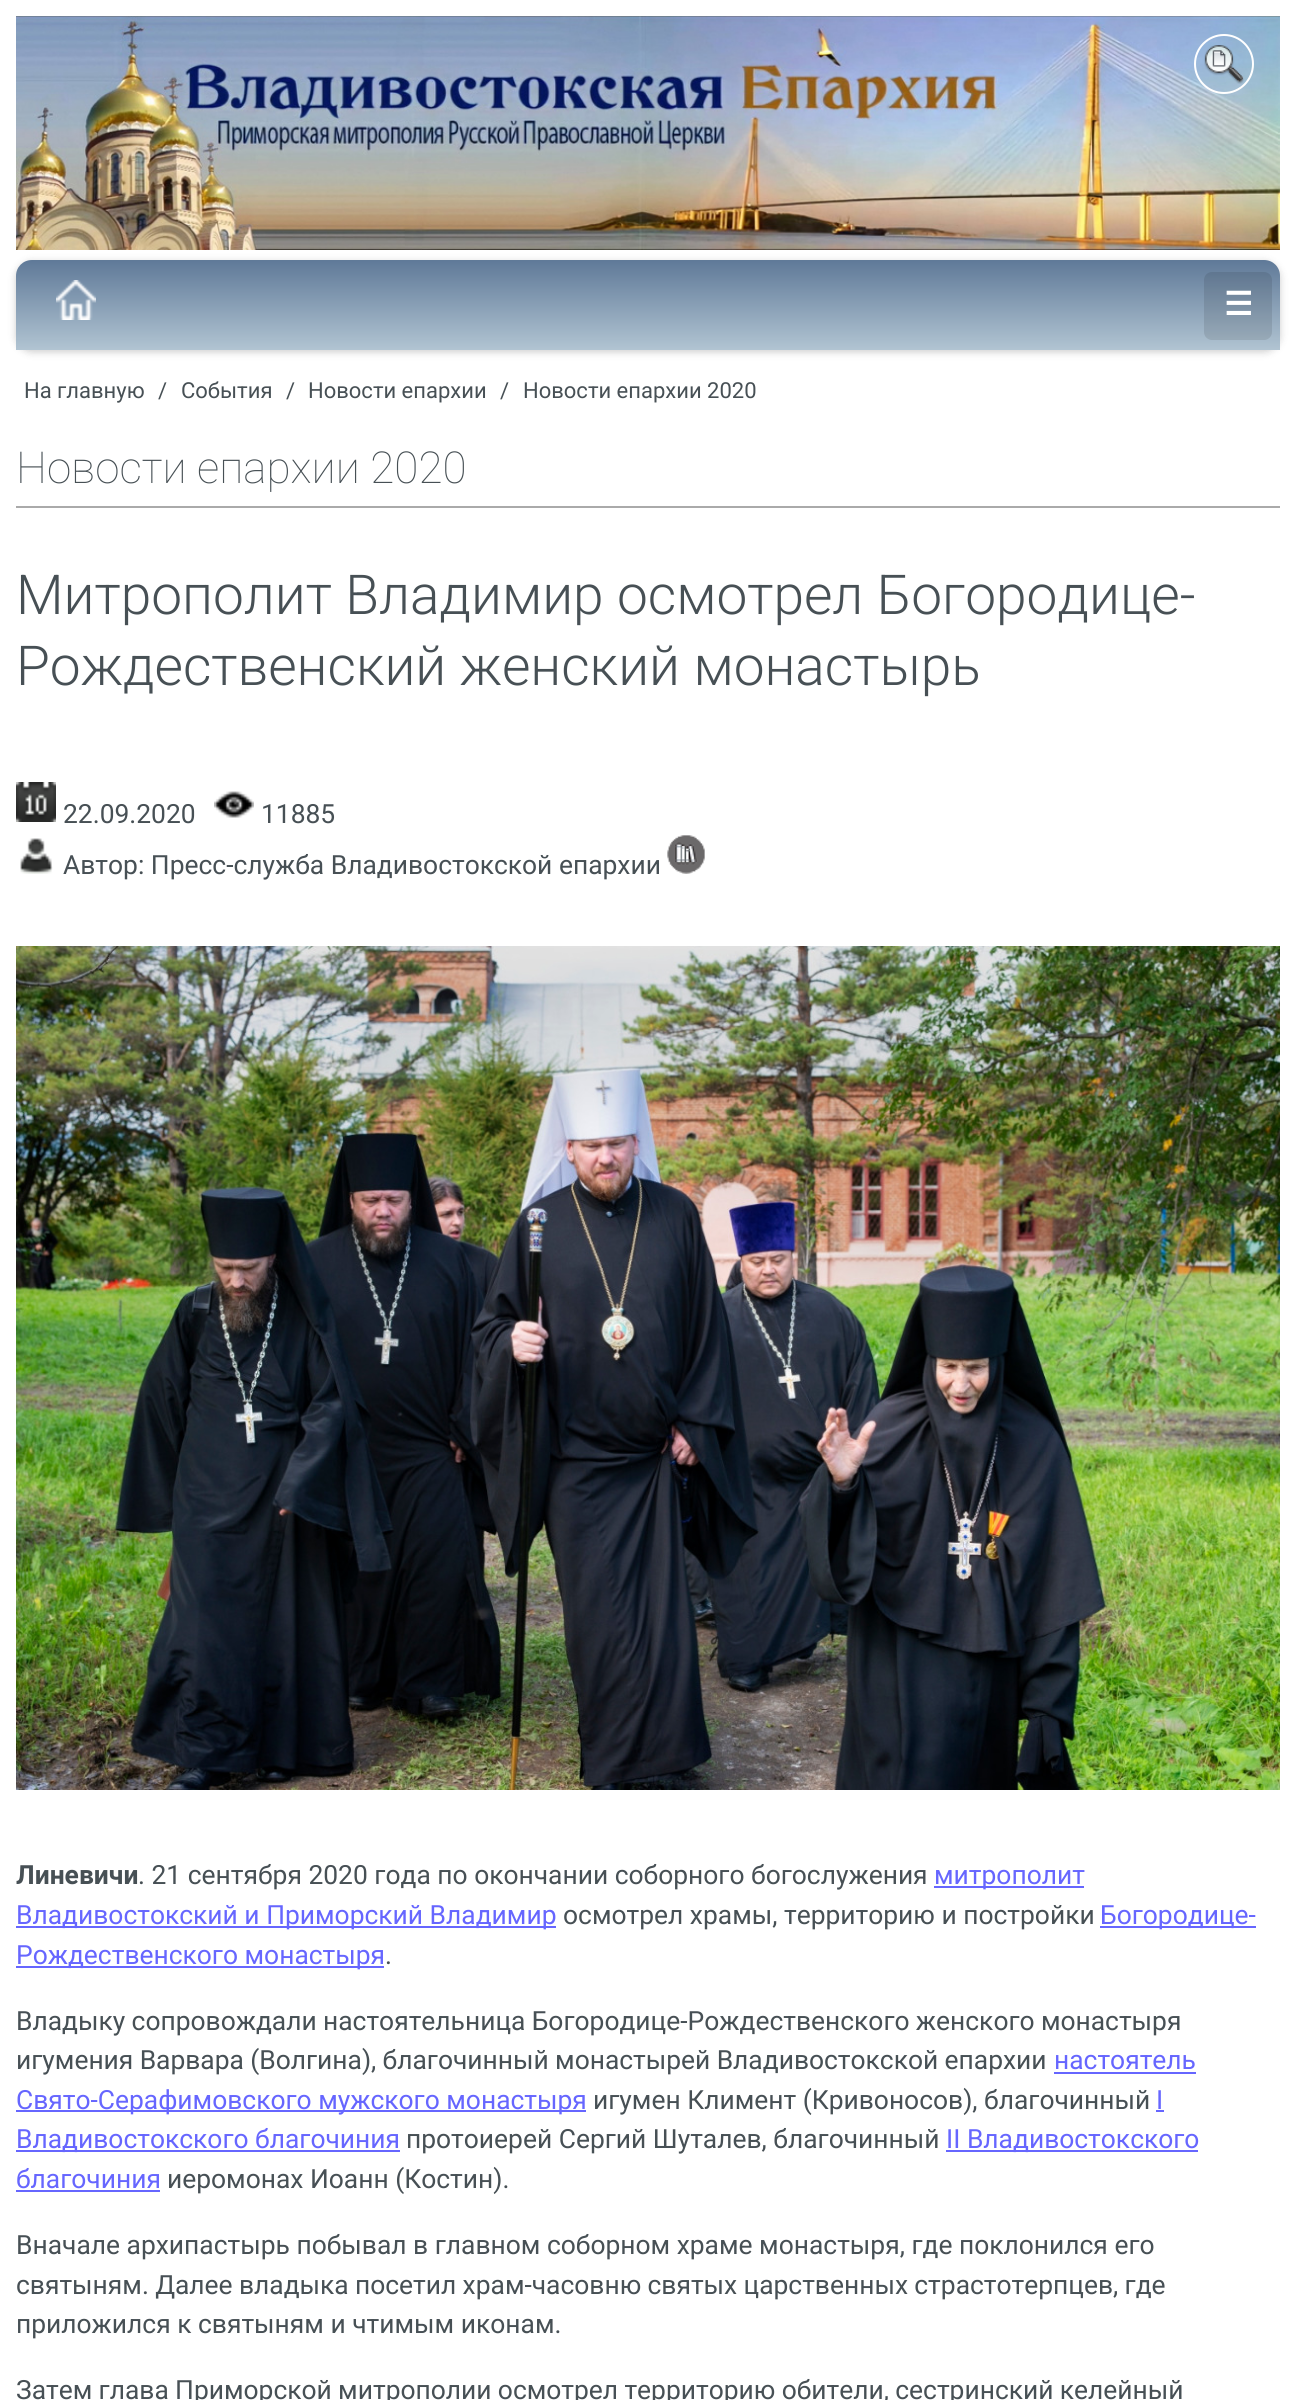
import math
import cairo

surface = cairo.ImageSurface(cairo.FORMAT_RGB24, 1296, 2400)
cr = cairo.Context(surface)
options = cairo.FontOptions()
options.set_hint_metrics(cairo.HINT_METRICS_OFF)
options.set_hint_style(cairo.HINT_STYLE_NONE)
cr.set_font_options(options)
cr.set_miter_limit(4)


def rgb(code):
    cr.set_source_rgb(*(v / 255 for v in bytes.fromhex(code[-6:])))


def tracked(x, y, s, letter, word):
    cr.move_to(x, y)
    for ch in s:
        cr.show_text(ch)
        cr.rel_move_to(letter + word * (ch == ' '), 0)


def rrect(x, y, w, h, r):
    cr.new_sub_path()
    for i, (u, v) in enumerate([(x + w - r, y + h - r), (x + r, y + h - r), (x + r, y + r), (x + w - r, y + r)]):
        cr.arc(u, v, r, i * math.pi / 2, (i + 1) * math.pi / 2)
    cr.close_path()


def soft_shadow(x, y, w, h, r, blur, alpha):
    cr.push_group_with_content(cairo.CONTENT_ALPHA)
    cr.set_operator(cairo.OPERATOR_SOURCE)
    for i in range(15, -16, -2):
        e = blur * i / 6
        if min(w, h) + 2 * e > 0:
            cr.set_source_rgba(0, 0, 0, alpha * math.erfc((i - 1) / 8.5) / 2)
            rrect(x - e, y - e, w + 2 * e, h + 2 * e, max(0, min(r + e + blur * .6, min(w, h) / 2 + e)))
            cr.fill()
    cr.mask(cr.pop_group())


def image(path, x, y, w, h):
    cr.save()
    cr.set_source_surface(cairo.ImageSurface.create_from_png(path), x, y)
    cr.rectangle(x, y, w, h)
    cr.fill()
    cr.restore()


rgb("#ffffff")
cr.paint()
image("img/1.png", 16, 16, 1264, 234)
cr.arc(1224, 64, 29, 0, 2 * math.pi)
rgb("#ffffff")
cr.stroke()
image("img/2.png", 1204, 45, 40, 39)
rgb("#000000")
soft_shadow(16, 262, 1264, 90, 16, 4, 0.2)
gradient = cairo.LinearGradient(648, 260, 648, 350)
gradient.add_color_stop_rgba(0, 0.373, 0.475, 0.596, 1)
gradient.add_color_stop_rgba(1, 0.694, 0.769, 0.824, 1)
cr.set_source(gradient)
cr.new_path()
cr.move_to(32, 260)
cr.line_to(1264, 260)
cr.curve_to(1273, 260, 1280, 267, 1280, 276)
cr.line_to(1280, 350)
cr.line_to(16, 350)
cr.line_to(16, 276)
cr.curve_to(16, 267, 23, 260, 32, 260)
cr.close_path()
cr.fill()
image("img/3.png", 56, 280, 40, 40)
cr.set_source_rgba(0, 0, 0, 0.1)
rrect(1204, 272, 68, 68, 8)
cr.fill()
rgb("#aaaaaa")
cr.rectangle(16, 506, 1264, 2)
cr.fill()
image("img/4.png", 16, 782, 40, 40)
image("img/5.png", 214, 791, 40, 27)
image("img/6.png", 20, 838, 33, 36)
image("img/7.png", 667, 835, 38, 39)
image("img/8.png", 16, 946, 1264, 844)
for x, y, w, h, color in [
    (934, 1886, 150, 2, "#6666ff"),
    (16, 1926, 540, 2, "#6666ff"),
    (1100, 1926, 156, 2, "#6666ff"),
    (16, 1966, 368, 2, "#6666ff"),
    (1054, 2072, 142, 2, "#6666ff"),
    (16, 2110, 570, 2, "#6666ff"),
    (1156, 2110, 8, 2, "#6666ff"),
    (16, 2150, 384, 2, "#6666ff"),
    (946, 2150, 252, 2, "#6666ff"),
    (16, 2190, 144, 2, "#6666ff"),
]:
    rgb(color)
    cr.rectangle(x, y, w, h)
    cr.fill()
cr.select_font_face("DejaVu Sans", cairo.FONT_SLANT_NORMAL, cairo.FONT_WEIGHT_BOLD)
cr.set_font_size(32)
rgb("#ffffff")
cr.move_to(1224, 315)
cr.show_text("☰")
cr.select_font_face("Roboto")
cr.set_font_size(22)
rgb("#475055")
for x, y, s in [
    (24, 398, "На главную"),
    (158, 398, "/"),
    (181, 398, "События"),
    (286, 398, "/"),
    (308, 398, "Новости епархии"),
    (500, 398, "/"),
    (523, 398, "Новости епархии 2020"),
]:
    cr.move_to(x, y)
    cr.show_text(s)
cr.select_font_face("Roboto Thin")
cr.set_font_size(44)
cr.move_to(16, 483)
cr.show_text("Новости епархии 2020")
cr.select_font_face("Roboto Light")
cr.set_font_size(55)
cr.move_to(16, 614)
cr.show_text("Митрополит Владимир осмотрел Богородице-")
cr.move_to(16, 685)
cr.show_text("Рождественский женский монастырь")
cr.select_font_face("Roboto")
cr.set_font_size(26.4)
for x, y, s in [
    (63, 823, "22.09.2020"),
    (261, 823, "11885"),
    (63, 874, "Автор: Пресс-служба Владивостокской епархии"),
]:
    cr.move_to(x, y)
    cr.show_text(s)
cr.select_font_face("Roboto", cairo.FONT_SLANT_NORMAL, cairo.FONT_WEIGHT_BOLD)
cr.move_to(16, 1884)
cr.show_text("Линевичи")
cr.select_font_face("Roboto")
cr.move_to(138, 1884)
cr.show_text(". 21 сентября 2020 года по окончании соборного богослужения")
rgb("#6666ff")
cr.move_to(934, 1884)
cr.show_text("митрополит")
cr.move_to(16, 1924)
cr.show_text("Владивостокский и Приморский Владимир")
rgb("#475055")
cr.move_to(563, 1924)
cr.show_text("осмотрел храмы, территорию и постройки")
rgb("#6666ff")
cr.move_to(1100, 1924)
cr.show_text("Богородице-")
cr.move_to(16, 1964)
cr.show_text("Рождественского монастыря")
rgb("#475055")
cr.move_to(385, 1964)
cr.show_text(".")
tracked(16, 2030, "Владыку сопровождали настоятельница Богородице-Рождественского женского монастыря", 0, -0.25)
tracked(16, 2069, "игумения Варвара (Волгина), благочинный монастырей Владивостокской епархии", 0, -0.25)
rgb("#6666ff")
cr.move_to(1054, 2069)
cr.show_text("настоятель")
cr.move_to(16, 2109)
cr.show_text("Свято-Серафимовского мужского монастыря")
rgb("#475055")
cr.move_to(593, 2109)
cr.show_text("игумен Климент (Кривоносов), благочинный")
rgb("#6666ff")
cr.move_to(1156, 2109)
cr.show_text("I")
cr.move_to(16, 2148)
cr.show_text("Владивостокского благочиния")
rgb("#475055")
cr.move_to(406, 2148)
cr.show_text("протоиерей Сергий Шуталев, благочинный")
rgb("#6666ff")
cr.move_to(946, 2148)
cr.show_text("II Владивостокского")
cr.move_to(16, 2188)
cr.show_text("благочиния")
rgb("#475055")
cr.move_to(167, 2188)
cr.show_text("иеромонах Иоанн (Костин).")
cr.move_to(16, 2254)
cr.show_text("Вначале архипастырь побывал в главном соборном храме монастыря, где поклонился его")
tracked(16, 2294, "святыням. Далее владыка посетил храм-часовню святых царственных страстотерпцев, где", 0, -0.25)
cr.move_to(16, 2333)
cr.show_text("приложился к святыням и чтимым иконам.")
tracked(16, 2399, "Затем глава Приморской митрополии осмотрел территорию обители, сестринский келейный", 0, -0.25)
surface.write_to_png("page.png")
